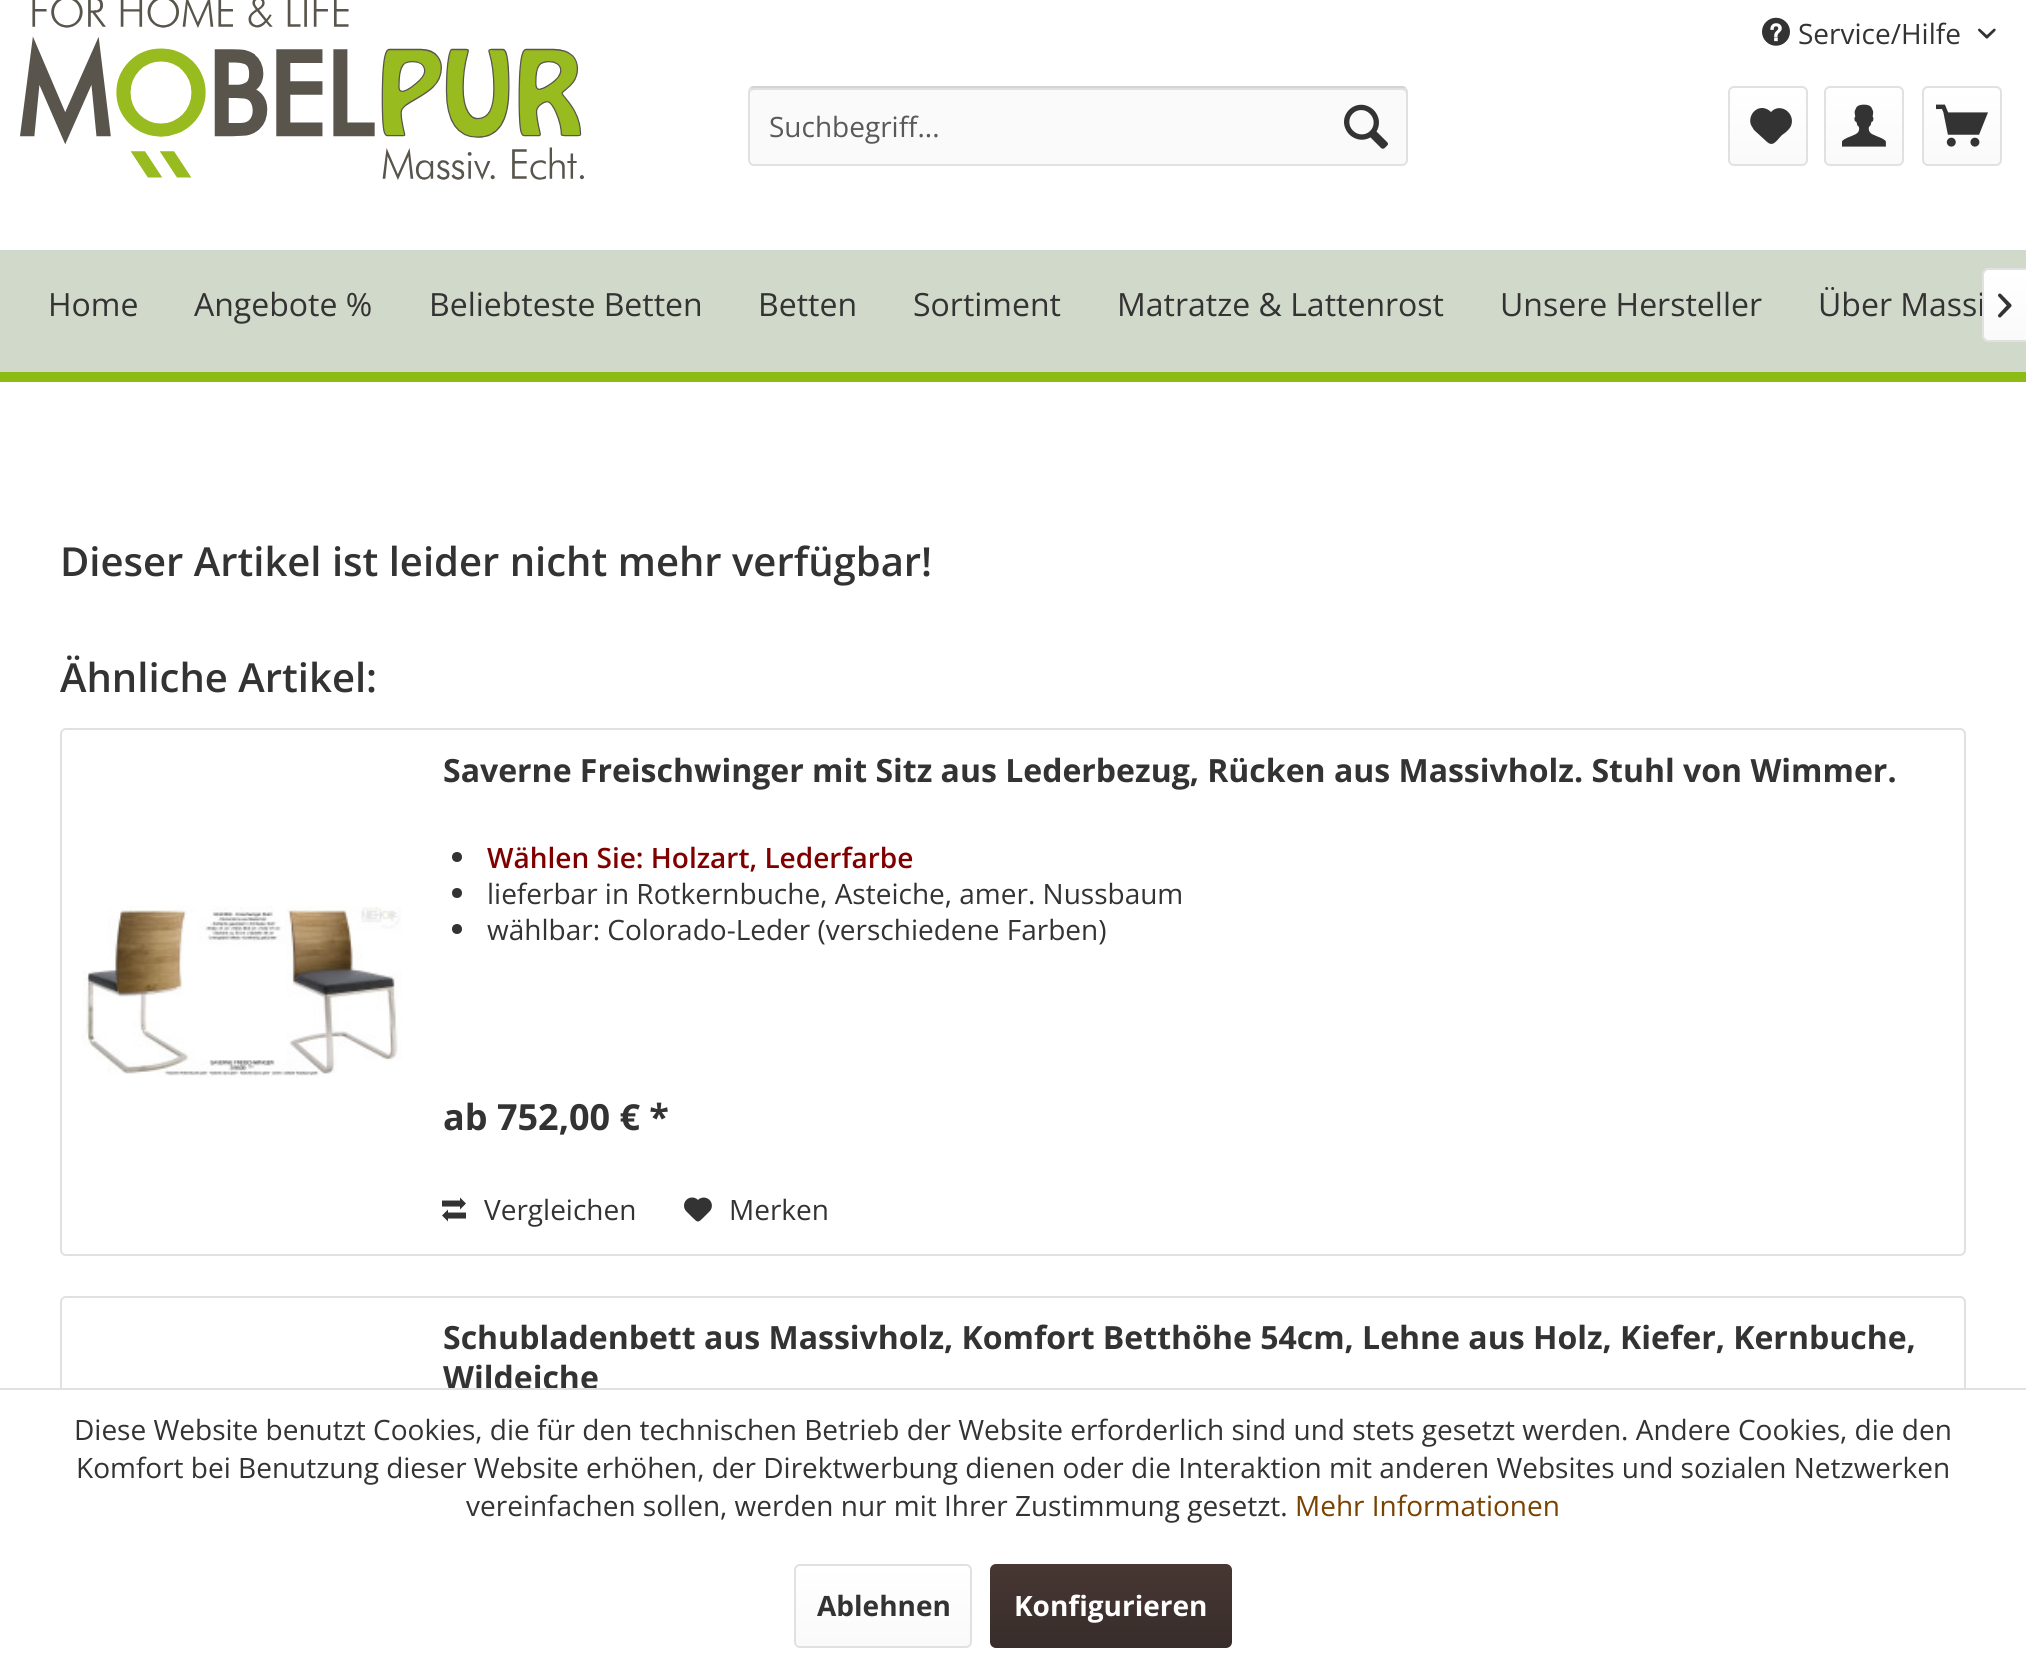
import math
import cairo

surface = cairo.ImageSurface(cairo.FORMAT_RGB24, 2026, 1667)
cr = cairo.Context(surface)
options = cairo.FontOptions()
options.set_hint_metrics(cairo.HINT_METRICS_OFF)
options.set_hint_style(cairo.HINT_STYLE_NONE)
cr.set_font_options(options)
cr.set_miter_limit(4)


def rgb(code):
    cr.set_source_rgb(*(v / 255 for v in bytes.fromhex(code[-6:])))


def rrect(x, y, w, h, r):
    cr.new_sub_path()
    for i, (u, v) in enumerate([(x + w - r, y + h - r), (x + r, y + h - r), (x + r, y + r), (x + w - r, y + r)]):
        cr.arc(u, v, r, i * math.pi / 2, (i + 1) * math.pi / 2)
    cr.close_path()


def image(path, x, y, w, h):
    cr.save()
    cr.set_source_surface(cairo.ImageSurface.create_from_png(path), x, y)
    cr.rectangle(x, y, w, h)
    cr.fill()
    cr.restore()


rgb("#ffffff")
cr.paint()
image("img/1.png", 1762, 17, 28, 29)
image("img/2.png", 1978, 28, 18, 11)
image("img/3.png", 20, 0, 564, 180)
rgb("#fafafa")
rrect(748, 86, 660, 80, 6)
cr.fill()
rgb("#e1e1e1")
cr.new_path()
cr.move_to(754, 90)
cr.line_to(1402, 90)
cr.curve_to(1404, 90, 1406, 92, 1406, 94)
cr.curve_to(1406, 91, 1406, 88, 1402, 88)
cr.line_to(752, 88)
cr.line_to(751, 90)
cr.curve_to(750, 91, 750, 93, 750, 94)
cr.curve_to(750, 92, 752, 90, 754, 90)
cr.close_path()
cr.fill()
cr.new_path()
cr.move_to(750.5, 88.5)
cr.curve_to(751.5, 87.5, 752.5, 87, 754, 87)
cr.line_to(1402, 87)
cr.curve_to(1403.5, 87, 1404.5, 87.5, 1405.5, 88.5)
rgb("#d4d4d4")
cr.stroke()
cr.new_path()
cr.move_to(1405.5, 88.5)
cr.curve_to(1406.5, 89.5, 1407, 90.5, 1407, 92)
cr.line_to(1407, 160)
cr.curve_to(1407, 161.5, 1406.5, 162.5, 1405.5, 163.5)
cr.curve_to(1404.5, 164.5, 1403.5, 165, 1402, 165)
cr.line_to(754, 165)
cr.curve_to(752.5, 165, 751.5, 164.5, 750.5, 163.5)
cr.curve_to(749.5, 162.5, 749, 161.5, 749, 160)
cr.line_to(749, 92)
cr.curve_to(749, 90.5, 749.5, 89.5, 750.5, 88.5)
rgb("#e1e1e1")
cr.stroke()
image("img/4.png", 1344, 104, 44, 45)
gradient = cairo.LinearGradient(1768, 88, 1768, 164)
gradient.add_color_stop_rgba(0, 1, 1, 1, 1)
gradient.add_color_stop_rgba(1, 0.98, 0.98, 0.98, 1)
cr.set_source(gradient)
rrect(1730, 88, 76, 76, 4)
cr.fill()
rrect(1729, 87, 78, 78, 5)
rgb("#e1e1e1")
cr.stroke()
rgb("#333333")
cr.new_path()
cr.move_to(1762, 108)
cr.curve_to(1754, 108, 1748, 117, 1751, 125)
cr.line_to(1754, 130)
cr.line_to(1766, 141)
cr.curve_to(1773, 148, 1776, 141, 1782, 135)
cr.curve_to(1785, 133, 1789, 130, 1791, 126)
cr.curve_to(1796, 113, 1780, 102, 1771, 112)
cr.curve_to(1769, 110, 1766, 108, 1762, 108)
cr.close_path()
cr.fill()
gradient = cairo.LinearGradient(1864, 88, 1864, 164)
gradient.add_color_stop_rgba(0, 1, 1, 1, 1)
gradient.add_color_stop_rgba(1, 0.98, 0.98, 0.98, 1)
cr.set_source(gradient)
rrect(1826, 88, 76, 76, 4)
cr.fill()
rrect(1825, 87, 78, 78, 5)
rgb("#e1e1e1")
cr.stroke()
image("img/5.png", 1842, 104, 44, 43)
gradient = cairo.LinearGradient(1962, 88, 1962, 164)
gradient.add_color_stop_rgba(0, 1, 1, 1, 1)
gradient.add_color_stop_rgba(1, 0.98, 0.98, 0.98, 1)
cr.set_source(gradient)
rrect(1924, 88, 76, 76, 4)
cr.fill()
rrect(1923, 87, 78, 78, 5)
rgb("#e1e1e1")
cr.stroke()
image("img/6.png", 1936, 104, 52, 43)
rgb("#8cbb15")
cr.rectangle(0, 372, 2026, 10)
cr.fill()
rgb("#d0d9ca")
cr.rectangle(0, 250, 2026, 122)
cr.fill()
gradient = cairo.LinearGradient(2005, 270, 2005, 340)
gradient.add_color_stop_rgba(0, 1, 1, 1, 1)
gradient.add_color_stop_rgba(1, 0.98, 0.98, 0.98, 1)
cr.set_source(gradient)
cr.new_path()
cr.move_to(1988, 270)
cr.line_to(2026, 270)
cr.line_to(2026, 340)
cr.line_to(1988, 340)
cr.curve_to(1986, 340, 1984, 338, 1984, 336)
cr.line_to(1984, 274)
cr.curve_to(1984, 272, 1986, 270, 1988, 270)
cr.close_path()
cr.fill()
rrect(61, 729, 1904, 526, 5)
rgb("#e1e1e1")
cr.stroke()
rgb("#333333")
cr.arc(457, 857, 5, 0, 2 * math.pi)
cr.fill()
cr.arc(457, 893, 5, 0, 2 * math.pi)
cr.fill()
cr.arc(457, 929, 5, 0, 2 * math.pi)
cr.fill()
image("img/8.png", 82, 906, 320, 172)
image("img/9.png", 442, 1197, 24, 25)
image("img/10.png", 684, 1197, 28, 25)
rrect(61, 1297, 1904, 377, 5)
rgb("#e1e1e1")
cr.stroke()
rgb("#ffffff")
cr.rectangle(60, 1390, 1906, 277)
cr.fill()
gradient = cairo.LinearGradient(883, 1566, 883, 1646)
gradient.add_color_stop_rgba(0, 1, 1, 1, 1)
gradient.add_color_stop_rgba(1, 0.98, 0.98, 0.98, 1)
cr.set_source(gradient)
rrect(796, 1566, 174, 80, 4)
cr.fill()
rrect(795, 1565, 176, 82, 5)
rgb("#e1e1e1")
cr.stroke()
gradient = cairo.LinearGradient(1111, 1564, 1111, 1648)
gradient.add_color_stop_rgba(0, 0.282, 0.216, 0.2, 1)
gradient.add_color_stop_rgba(1, 0.216, 0.176, 0.169, 1)
cr.set_source(gradient)
rrect(990, 1564, 242, 84, 6)
cr.fill()
cr.select_font_face("Open Sans")
cr.set_font_size(28)
rgb("#333333")
cr.move_to(1798, 44)
cr.show_text("Service/Hilfe")
rgb("#595959")
cr.move_to(769, 137)
cr.show_text("Suchbegriff...")
cr.set_font_size(32)
rgb("#333333")
for x, y, s in [
    (48, 316, "Home"),
    (194, 316, "Angebote %"),
    (429, 316, "Beliebteste Betten"),
    (758, 316, "Betten"),
    (913, 316, "Sortiment"),
    (1117, 316, "Matratze & Lattenrost"),
    (1500, 316, "Unsere Hersteller"),
    (1818, 316, "Über Massi"),
]:
    cr.move_to(x, y)
    cr.show_text(s)
rgb("#e1e1e1")
cr.set_fill_rule(cairo.FILL_RULE_EVEN_ODD)
cr.new_path()
cr.move_to(1988, 268)
cr.line_to(2026, 268)
cr.line_to(2026, 342)
cr.line_to(1988, 342)
cr.curve_to(1985, 342, 1982, 339, 1982, 336)
cr.line_to(1982, 274)
cr.curve_to(1982, 271, 1985, 268, 1988, 268)
cr.close_path()
cr.move_to(1988, 270)
cr.line_to(2026, 270)
cr.line_to(2026, 340)
cr.line_to(1988, 340)
cr.curve_to(1986, 340, 1984, 338, 1984, 336)
cr.line_to(1984, 274)
cr.curve_to(1984, 272, 1986, 270, 1988, 270)
cr.close_path()
cr.fill()
image("img/7.png", 1998, 293, 14, 25)
cr.select_font_face("Open Sans SemiBold")
cr.set_font_size(40)
rgb("#333333")
cr.move_to(60, 576)
cr.show_text("Dieser Artikel ist leider nicht mehr verfügbar!")
cr.move_to(60, 692)
cr.show_text("Ähnliche Artikel:")
cr.select_font_face("Open Sans", cairo.FONT_SLANT_NORMAL, cairo.FONT_WEIGHT_BOLD)
cr.set_font_size(32)
cr.move_to(443, 782)
cr.show_text("Saverne Freischwinger mit Sitz aus Lederbezug, Rücken aus Massivholz. Stuhl von Wimmer.")
cr.select_font_face("Open Sans SemiBold")
cr.set_font_size(28)
rgb("#800000")
cr.move_to(487, 868)
cr.show_text("Wählen Sie: Holzart, Lederfarbe")
cr.select_font_face("Open Sans")
rgb("#333333")
cr.move_to(487, 904)
cr.show_text("lieferbar in Rotkernbuche, Asteiche, amer. Nussbaum")
cr.move_to(487, 940)
cr.show_text("wählbar: Colorado-Leder (verschiedene Farben)")
cr.select_font_face("Open Sans", cairo.FONT_SLANT_NORMAL, cairo.FONT_WEIGHT_BOLD)
cr.set_font_size(36)
cr.move_to(443, 1130)
cr.show_text("ab 752,00 € *")
cr.select_font_face("Open Sans")
cr.set_font_size(28)
cr.move_to(484, 1220)
cr.show_text("Vergleichen")
cr.move_to(729, 1220)
cr.show_text("Merken")
cr.select_font_face("Open Sans", cairo.FONT_SLANT_NORMAL, cairo.FONT_WEIGHT_BOLD)
cr.set_font_size(32)
cr.move_to(443, 1349)
cr.show_text("Schubladenbett aus Massivholz, Komfort Betthöhe 54cm, Lehne aus Holz, Kiefer, Kernbuche,")
cr.move_to(443, 1389)
cr.show_text("Wildeiche")
rgb("#e1e1e1")
cr.rectangle(0, 1388, 2026, 2)
cr.fill()
cr.select_font_face("Open Sans")
cr.set_font_size(28)
rgb("#333333")
for x, y, s in [
    (74, 1440, "Diese Website benutzt Cookies, die für den technischen Betrieb der Website erforderlich sind und stets gesetzt werden. Andere Cookies, die den"),
    (76, 1478, "Komfort bei Benutzung dieser Website erhöhen, der Direktwerbung dienen oder die Interaktion mit anderen Websites und sozialen Netzwerken"),
    (466, 1516, "vereinfachen sollen, werden nur mit Ihrer Zustimmung gesetzt."),
]:
    cr.move_to(x, y)
    cr.show_text(s)
rgb("#7a4200")
cr.move_to(1295, 1516)
cr.show_text("Mehr Informationen")
cr.select_font_face("Open Sans", cairo.FONT_SLANT_NORMAL, cairo.FONT_WEIGHT_BOLD)
rgb("#333333")
cr.move_to(817, 1616)
cr.show_text("Ablehnen")
rgb("#ffffff")
cr.move_to(1014, 1616)
cr.show_text("Konfigurieren")
surface.write_to_png("page.png")
